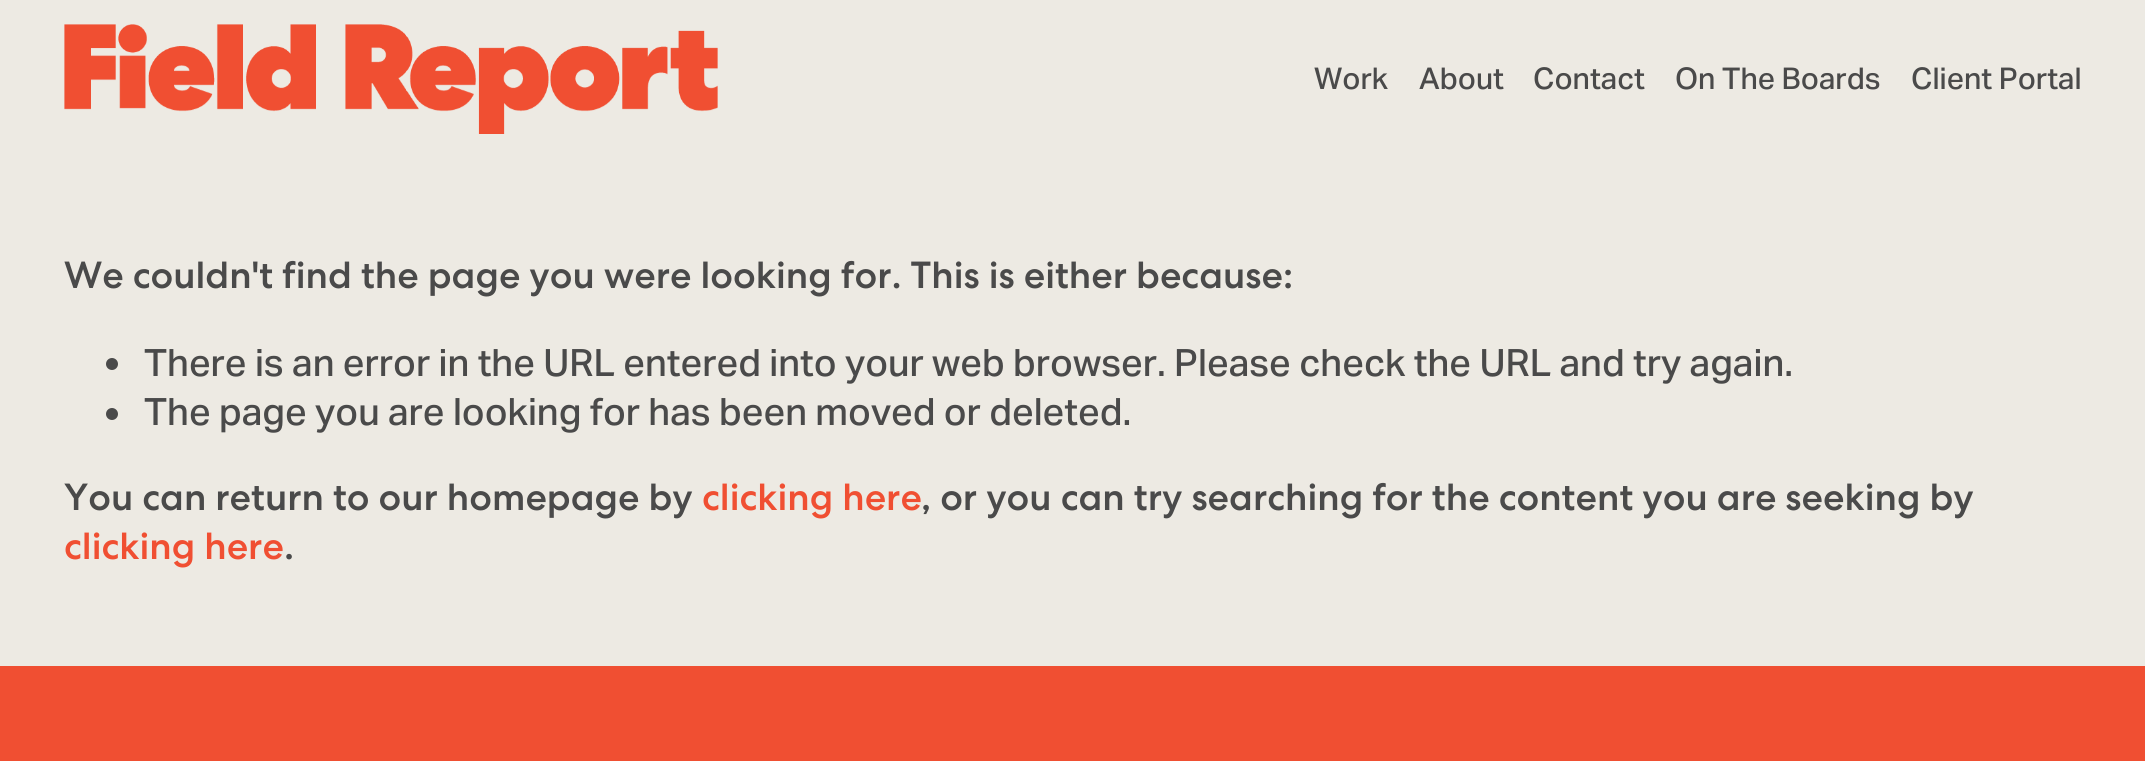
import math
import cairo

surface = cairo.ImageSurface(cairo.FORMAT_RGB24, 2145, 761)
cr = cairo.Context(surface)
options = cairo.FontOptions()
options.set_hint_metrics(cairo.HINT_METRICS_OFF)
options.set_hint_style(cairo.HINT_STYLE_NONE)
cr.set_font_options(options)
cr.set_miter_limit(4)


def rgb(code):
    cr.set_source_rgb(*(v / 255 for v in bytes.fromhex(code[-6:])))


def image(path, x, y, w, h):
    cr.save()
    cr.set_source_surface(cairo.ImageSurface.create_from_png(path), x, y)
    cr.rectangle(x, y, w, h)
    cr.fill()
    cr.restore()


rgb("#edeae3")
cr.paint()
image("img/1.png", 64, 24, 654, 110)
rgb("#4a4a4a")
cr.arc(112, 364, 6, 0, 2 * math.pi)
cr.fill()
cr.arc(112, 414, 6, 0, 2 * math.pi)
cr.fill()
rgb("#f04f32")
cr.rectangle(0, 666, 2145, 95)
cr.fill()
cr.select_font_face("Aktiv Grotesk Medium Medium")
cr.set_font_size(30)
rgb("#4a4a4a")
for x, y, s in [
    (1314, 89, "Work"),
    (1419, 89, "About"),
    (1533, 89, "Contact"),
    (1675, 89, "On The Boards"),
    (1911, 89, "Client Portal"),
]:
    cr.move_to(x, y)
    cr.show_text(s)
cr.select_font_face("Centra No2 Medium")
cr.set_font_size(37.75)
cr.move_to(64, 288)
cr.show_text("We couldn't find the page you were looking for. This is either because:")
cr.select_font_face("Aktiv Grotesk Medium Medium")
cr.move_to(144, 376)
cr.show_text("There is an error in the URL entered into your web browser. Please check the URL and try again.")
cr.move_to(144, 425)
cr.show_text("The page you are looking for has been moved or deleted.")
cr.select_font_face("Centra No2 Medium")
cr.move_to(64, 510)
cr.show_text("You can return to our homepage by")
rgb("#f04f32")
cr.move_to(702, 510)
cr.show_text("clicking here")
rgb("#4a4a4a")
cr.move_to(921, 510)
cr.show_text(", or you can try searching for the content you are seeking by")
rgb("#f04f32")
cr.move_to(64, 559)
cr.show_text("clicking here")
rgb("#4a4a4a")
cr.move_to(284, 559)
cr.show_text(".")
surface.write_to_png("page.png")
